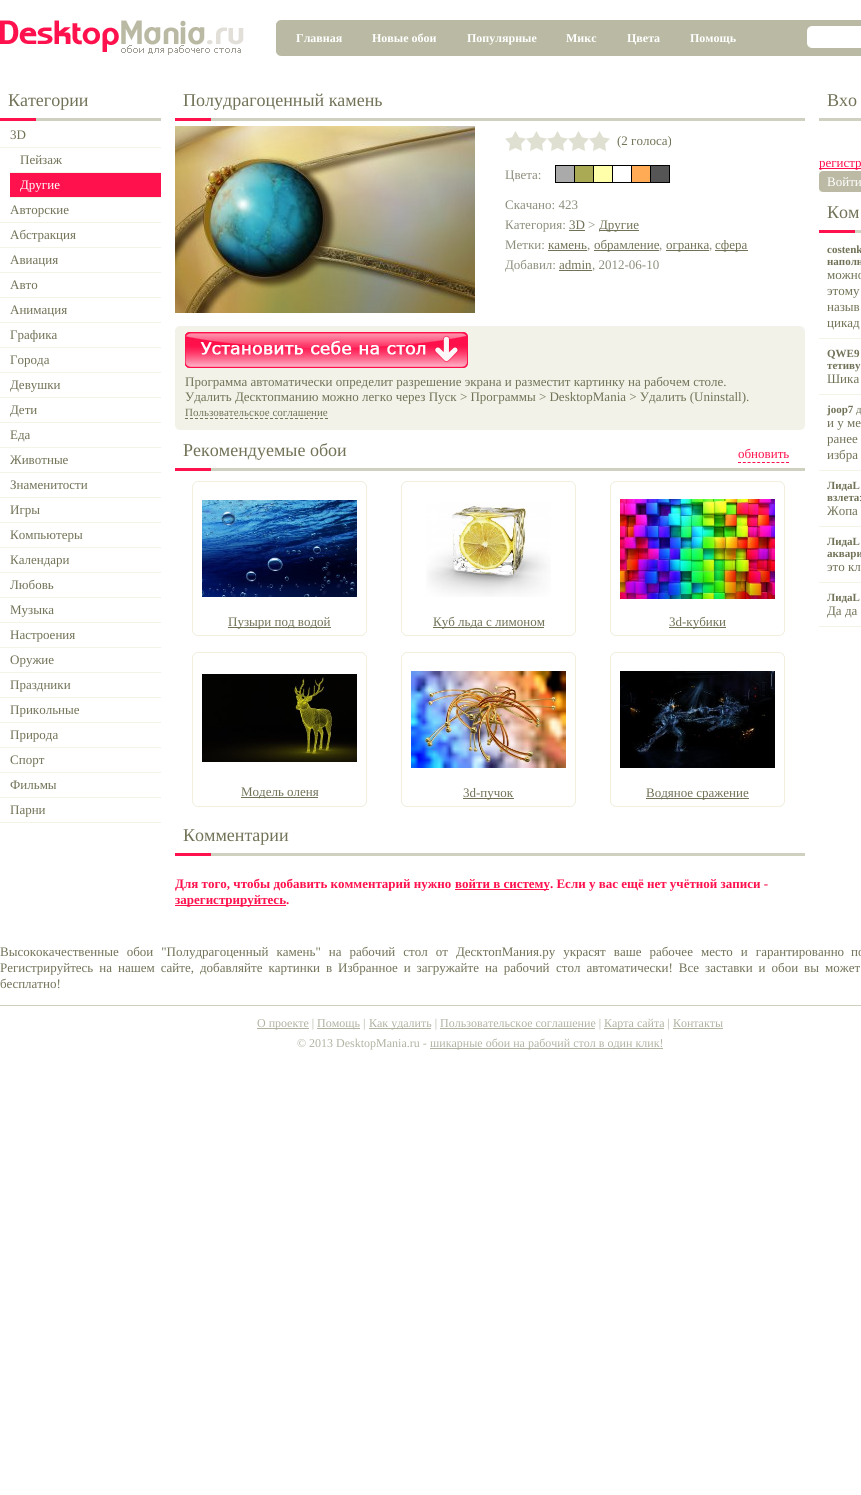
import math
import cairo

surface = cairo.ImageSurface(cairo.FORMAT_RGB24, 861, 1495)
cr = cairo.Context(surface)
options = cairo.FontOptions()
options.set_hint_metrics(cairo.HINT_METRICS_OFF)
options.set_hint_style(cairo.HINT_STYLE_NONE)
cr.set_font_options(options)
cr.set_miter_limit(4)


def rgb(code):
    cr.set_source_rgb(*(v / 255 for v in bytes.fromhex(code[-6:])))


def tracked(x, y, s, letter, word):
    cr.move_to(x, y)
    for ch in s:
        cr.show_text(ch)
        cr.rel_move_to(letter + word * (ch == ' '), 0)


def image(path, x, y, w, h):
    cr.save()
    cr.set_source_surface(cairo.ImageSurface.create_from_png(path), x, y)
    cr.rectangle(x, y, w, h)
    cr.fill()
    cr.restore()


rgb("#ffffff")
cr.paint()
image("img/1.png", 0, 20, 244, 35)
rgb("#babaa4")
cr.rectangle(276, 20, 585, 36)
cr.fill()
image("img/2.png", 276, 20, 5, 5)
image("img/3.png", 807, 26, 54, 22)
rgb("#ffffff")
cr.rectangle(815, 33, 46, 9)
cr.fill()
image("img/4.png", 276, 51, 5, 5)
for x, y, w, h, color in [
    (36, 118, 125, 3, "#d0d0c0"),
    (0, 118, 36, 3, "#ff114d"),
    (0, 147, 161, 1, "#f3f3e6"),
    (10, 172, 151, 1, "#f3f3e6"),
    (10, 173, 151, 24, "#ff114d"),
    (10, 197, 151, 1, "#f3f3e6"),
    (0, 222, 161, 1, "#f3f3e6"),
    (0, 247, 161, 1, "#f3f3e6"),
    (0, 272, 161, 1, "#f3f3e6"),
    (0, 297, 161, 1, "#f3f3e6"),
    (0, 322, 161, 1, "#f3f3e6"),
    (0, 347, 161, 1, "#f3f3e6"),
    (0, 372, 161, 1, "#f3f3e6"),
    (0, 397, 161, 1, "#f3f3e6"),
    (0, 422, 161, 1, "#f3f3e6"),
    (0, 447, 161, 1, "#f3f3e6"),
    (0, 472, 161, 1, "#f3f3e6"),
    (0, 497, 161, 1, "#f3f3e6"),
    (0, 522, 161, 1, "#f3f3e6"),
    (0, 547, 161, 1, "#f3f3e6"),
    (0, 572, 161, 1, "#f3f3e6"),
    (0, 597, 161, 1, "#f3f3e6"),
    (0, 622, 161, 1, "#f3f3e6"),
    (0, 647, 161, 1, "#f3f3e6"),
    (0, 672, 161, 1, "#f3f3e6"),
    (0, 697, 161, 1, "#f3f3e6"),
    (0, 722, 161, 1, "#f3f3e6"),
    (0, 747, 161, 1, "#f3f3e6"),
    (0, 772, 161, 1, "#f3f3e6"),
    (0, 797, 161, 1, "#f3f3e6"),
    (0, 822, 161, 1, "#f3f3e6"),
    (211, 118, 594, 3, "#d0d0c0"),
    (175, 118, 36, 3, "#ff114d"),
]:
    rgb(color)
    cr.rectangle(x, y, w, h)
    cr.fill()
image("img/5.png", 175, 126, 300, 187)
image("img/6.png", 505, 131, 105, 20)
for x, y, w, h, color in [
    (555, 165, 115, 18, "#000000"),
    (556, 166, 18, 16, "#aaaaaa"),
    (575, 166, 18, 16, "#aaaa55"),
    (594, 166, 18, 16, "#ffffaa"),
    (613, 166, 18, 16, "#ffffff"),
    (632, 166, 18, 16, "#ffaa55"),
    (651, 166, 18, 16, "#555555"),
    (569, 230, 16, 1, "#727258"),
    (599, 230, 40, 1, "#727258"),
    (548, 250, 39, 1, "#727258"),
    (594, 250, 65, 1, "#727258"),
    (666, 250, 43, 1, "#727258"),
    (715, 250, 33, 1, "#727258"),
    (559, 270, 33, 1, "#727258"),
    (175, 326, 630, 104, "#f2f2e8"),
]:
    rgb(color)
    cr.rectangle(x, y, w, h)
    cr.fill()
image("img/7.png", 175, 326, 4, 4)
image("img/8.png", 801, 326, 4, 4)
image("img/9.png", 185, 332, 283, 36)
cr.new_path()
cr.move_to(185, 418.5)
cr.line_to(328, 418.5)
rgb("#727258")
cr.set_line_width(1)
cr.set_dash([3, 2])
cr.stroke()
image("img/10.png", 175, 426, 4, 4)
image("img/11.png", 801, 426, 4, 4)
rgb("#d0d0c0")
cr.rectangle(211, 468, 594, 3)
cr.fill()
cr.new_path()
cr.move_to(738, 462.5)
cr.line_to(789, 462.5)
rgb("#fb114d")
cr.set_dash([3, 1.8])
cr.stroke()
rgb("#ff114d")
cr.rectangle(175, 468, 36, 3)
cr.fill()
image("img/12.png", 192, 481, 175, 155)
image("img/13.png", 202, 500, 155, 97)
rgb("#727258")
cr.rectangle(228, 627, 103, 1)
cr.fill()
image("img/12.png", 401, 481, 175, 155)
image("img/14.png", 426, 502, 125, 95)
cr.rectangle(433, 627, 111, 1)
cr.fill()
image("img/12.png", 610, 481, 175, 155)
image("img/15.png", 620, 499, 155, 100)
cr.rectangle(669, 627, 57, 1)
cr.fill()
image("img/12.png", 192, 652, 175, 155)
image("img/16.png", 202, 674, 155, 88)
cr.rectangle(241, 797, 77, 1)
cr.fill()
image("img/12.png", 401, 652, 175, 155)
image("img/17.png", 411, 671, 155, 97)
cr.rectangle(463, 798, 51, 1)
cr.fill()
image("img/12.png", 610, 652, 175, 155)
image("img/18.png", 620, 671, 155, 97)
for x, y, w, h, color in [
    (646, 798, 103, 1, "#727258"),
    (211, 853, 594, 3, "#d0d0c0"),
    (175, 853, 36, 3, "#ff114d"),
    (455, 889, 94, 1, "#ff114d"),
    (175, 905, 111, 1, "#ff114d"),
    (819, 118, 42, 3, "#d0d0c0"),
    (819, 168, 42, 1, "#ff114d"),
]:
    rgb(color)
    cr.rectangle(x, y, w, h)
    cr.fill()
image("img/19.png", 819, 171, 42, 21)
for x, y, w, h, color in [
    (855, 230, 6, 3, "#d0d0c0"),
    (819, 230, 36, 3, "#ff114d"),
    (819, 338, 42, 1, "#f3f3e6"),
    (819, 394, 42, 1, "#f3f3e6"),
    (819, 470, 42, 1, "#f3f3e6"),
    (819, 526, 42, 1, "#f3f3e6"),
    (819, 582, 42, 1, "#f3f3e6"),
    (819, 626, 42, 1, "#f3f3e6"),
    (0, 1005, 861, 1, "#cfcfbf"),
    (257, 1028, 52, 1, "#b2b2a3"),
    (317, 1028, 43, 1, "#b2b2a3"),
    (369, 1028, 62, 1, "#b2b2a3"),
    (604, 1028, 60, 1, "#b2b2a3"),
    (440, 1028, 155, 1, "#b2b2a3"),
    (673, 1028, 50, 1, "#b2b2a3"),
    (430, 1048, 233, 1, "#b2b2a3"),
]:
    rgb(color)
    cr.rectangle(x, y, w, h)
    cr.fill()
cr.select_font_face("Liberation Serif", cairo.FONT_SLANT_NORMAL, cairo.FONT_WEIGHT_BOLD)
cr.set_font_size(12)
rgb("#ffffff")
for x, y, s in [
    (296, 42, "Главная"),
    (372, 42, "Новые обои"),
    (467, 42, "Популярные"),
    (566, 42, "Микс"),
    (627, 42, "Цвета"),
    (690, 42, "Помощь"),
]:
    cr.move_to(x, y)
    cr.show_text(s)
cr.select_font_face("Liberation Serif")
cr.set_font_size(18)
rgb("#727258")
cr.move_to(8, 106)
cr.show_text("Категории")
cr.set_font_size(13)
cr.move_to(10, 139)
cr.show_text("3D")
cr.move_to(20, 164)
cr.show_text("Пейзаж")
rgb("#ffffff")
cr.move_to(20, 189)
cr.show_text("Другие")
rgb("#727258")
for x, y, s in [
    (10, 214, "Авторские"),
    (10, 239, "Абстракция"),
    (10, 264, "Авиация"),
    (10, 289, "Авто"),
    (10, 314, "Анимация"),
    (10, 339, "Графика"),
    (10, 364, "Города"),
    (10, 389, "Девушки"),
    (10, 414, "Дети"),
    (10, 439, "Еда"),
    (10, 464, "Животные"),
    (10, 489, "Знаменитости"),
    (10, 514, "Игры"),
    (10, 539, "Компьютеры"),
    (10, 564, "Календари"),
    (10, 589, "Любовь"),
    (10, 614, "Музыка"),
    (10, 639, "Настроения"),
    (10, 664, "Оружие"),
    (10, 689, "Праздники"),
    (10, 714, "Прикольные"),
    (10, 739, "Природа"),
    (10, 764, "Спорт"),
    (10, 789, "Фильмы"),
    (10, 814, "Парни"),
]:
    cr.move_to(x, y)
    cr.show_text(s)
cr.set_font_size(18)
cr.move_to(183, 106)
cr.show_text("Полудрагоценный камень")
cr.set_font_size(13)
cr.move_to(617, 145)
cr.show_text("(2 голоса)")
rgb("#8e8e7d")
for x, y, s in [
    (505, 179, "Цвета:"),
    (505, 209, "Скачано: 423"),
    (505, 229, "Категория:"),
]:
    cr.move_to(x, y)
    cr.show_text(s)
rgb("#727258")
cr.move_to(569, 229)
cr.show_text("3D")
rgb("#8e8e7d")
cr.move_to(588, 229)
cr.show_text(">")
rgb("#727258")
cr.move_to(599, 229)
cr.show_text("Другие")
rgb("#8e8e7d")
cr.move_to(505, 249)
cr.show_text("Метки:")
rgb("#727258")
cr.move_to(548, 249)
cr.show_text("камень")
rgb("#8e8e7d")
cr.move_to(587, 249)
cr.show_text(",")
rgb("#727258")
cr.move_to(594, 249)
cr.show_text("обрамление")
rgb("#8e8e7d")
cr.move_to(659, 249)
cr.show_text(",")
rgb("#727258")
cr.move_to(666, 249)
cr.show_text("огранка")
rgb("#8e8e7d")
cr.move_to(709, 249)
cr.show_text(",")
rgb("#727258")
cr.move_to(715, 249)
cr.show_text("сфера")
rgb("#8e8e7d")
cr.move_to(505, 269)
cr.show_text("Добавил:")
rgb("#727258")
cr.move_to(559, 269)
cr.show_text("admin")
rgb("#8e8e7d")
cr.move_to(592, 269)
cr.show_text(", 2012-06-10")
rgb("#727258")
cr.move_to(185, 386)
cr.show_text("Программа автоматически определит разрешение экрана и разместит картинку на рабочем столе.")
cr.move_to(185, 401)
cr.show_text("Удалить Десктопманию можно легко через Пуск > Программы > DesktopMania > Удалить (Uninstall).")
cr.set_font_size(11)
cr.move_to(185, 416)
cr.show_text("Пользовательское соглашение")
cr.set_font_size(18)
cr.move_to(183, 456)
cr.show_text("Рекомендуемые обои")
cr.set_font_size(13)
rgb("#ff114d")
cr.move_to(738, 458)
cr.show_text("обновить")
rgb("#727258")
for x, y, s in [
    (228, 626, "Пузыри под водой"),
    (433, 626, "Куб льда с лимоном"),
    (669, 626, "3d-кубики"),
    (241, 796, "Модель оленя"),
    (463, 797, "3d-пучок"),
    (646, 797, "Водяное сражение"),
]:
    cr.move_to(x, y)
    cr.show_text(s)
cr.set_font_size(18)
cr.move_to(183, 841)
cr.show_text("Комментарии")
cr.select_font_face("Liberation Serif", cairo.FONT_SLANT_NORMAL, cairo.FONT_WEIGHT_BOLD)
cr.set_font_size(13)
rgb("#ff114d")
for x, y, s in [
    (175, 888, "Для того, чтобы добавить комментарий нужно"),
    (455, 888, "войти в систему. Если у вас ещё нет учётной записи -"),
    (175, 904, "зарегистрируйтесь."),
]:
    cr.move_to(x, y)
    cr.show_text(s)
cr.select_font_face("Liberation Serif")
cr.set_font_size(18)
rgb("#727258")
cr.move_to(827, 106)
cr.show_text("Вхо")
cr.set_font_size(13)
rgb("#ff114d")
cr.move_to(819, 167)
cr.show_text("регистр")
rgb("#ffffff")
cr.move_to(827, 186)
cr.show_text("Войти")
cr.set_font_size(18)
rgb("#727258")
cr.move_to(827, 218)
cr.show_text("Ком")
cr.select_font_face("Liberation Serif", cairo.FONT_SLANT_NORMAL, cairo.FONT_WEIGHT_BOLD)
cr.set_font_size(11)
cr.move_to(827, 253)
cr.show_text("costenk")
cr.move_to(827, 265)
cr.show_text("наполн")
cr.select_font_face("Liberation Serif")
cr.set_font_size(13)
for x, y, s in [
    (827, 279, "можно"),
    (827, 295, "этому"),
    (827, 311, "назыв"),
    (827, 327, "цикад"),
]:
    cr.move_to(x, y)
    cr.show_text(s)
cr.select_font_face("Liberation Serif", cairo.FONT_SLANT_NORMAL, cairo.FONT_WEIGHT_BOLD)
cr.set_font_size(11)
cr.move_to(827, 357)
cr.show_text("QWE9")
cr.move_to(827, 369)
cr.show_text("тетиву")
cr.select_font_face("Liberation Serif")
cr.set_font_size(13)
cr.move_to(827, 383)
cr.show_text("Шика")
cr.select_font_face("Liberation Serif", cairo.FONT_SLANT_NORMAL, cairo.FONT_WEIGHT_BOLD)
cr.set_font_size(11)
cr.move_to(827, 413)
cr.show_text("joop7")
cr.select_font_face("Liberation Serif")
cr.move_to(856, 413)
cr.show_text("д")
cr.set_font_size(13)
for x, y, s in [
    (827, 427, "и у ме"),
    (827, 443, "ранее"),
    (827, 459, "избра"),
]:
    cr.move_to(x, y)
    cr.show_text(s)
cr.select_font_face("Liberation Serif", cairo.FONT_SLANT_NORMAL, cairo.FONT_WEIGHT_BOLD)
cr.set_font_size(11)
cr.move_to(827, 489)
cr.show_text("ЛидаL")
cr.move_to(827, 501)
cr.show_text("взлета")
cr.select_font_face("Liberation Serif")
cr.move_to(859, 501)
cr.show_text(":")
cr.set_font_size(13)
cr.move_to(827, 515)
cr.show_text("Жопа")
cr.select_font_face("Liberation Serif", cairo.FONT_SLANT_NORMAL, cairo.FONT_WEIGHT_BOLD)
cr.set_font_size(11)
cr.move_to(827, 545)
cr.show_text("ЛидаL")
cr.move_to(827, 557)
cr.show_text("аквари")
cr.select_font_face("Liberation Serif")
cr.set_font_size(13)
cr.move_to(827, 571)
cr.show_text("это кл")
cr.select_font_face("Liberation Serif", cairo.FONT_SLANT_NORMAL, cairo.FONT_WEIGHT_BOLD)
cr.set_font_size(11)
cr.move_to(827, 601)
cr.show_text("ЛидаL")
cr.select_font_face("Liberation Serif")
cr.set_font_size(13)
cr.move_to(827, 615)
cr.show_text("Да да")
tracked(0, 956, "Высококачественные обои \"Полудрагоценный камень\" на рабочий стол от ДесктопМания.ру украсят ваше рабочее место и гарантированно", 0, 4.75)
tracked(851, 956, "по", 0, 4.75)
tracked(0, 972, "Регистрируйтесь на нашем сайте, добавляйте картинки в Избранное и загружайте на рабочий", 0, 2.75)
tracked(556, 972, "стол автоматически! Все заставки и обои вы может", 0, 2.75)
cr.move_to(0, 988)
cr.show_text("бесплатно!")
cr.set_font_size(12)
rgb("#b2b2a3")
for x, y, s in [
    (257, 1027, "О проекте |"),
    (317, 1027, "Помощь |"),
    (369, 1027, "Как удалить | Пользовательское соглашение |"),
    (604, 1027, "Карта сайта | Контакты"),
    (297, 1047, "© 2013 DesktopMania.ru -"),
    (430, 1047, "шикарные обои на рабочий стол в один клик!"),
]:
    cr.move_to(x, y)
    cr.show_text(s)
surface.write_to_png("page.png")
